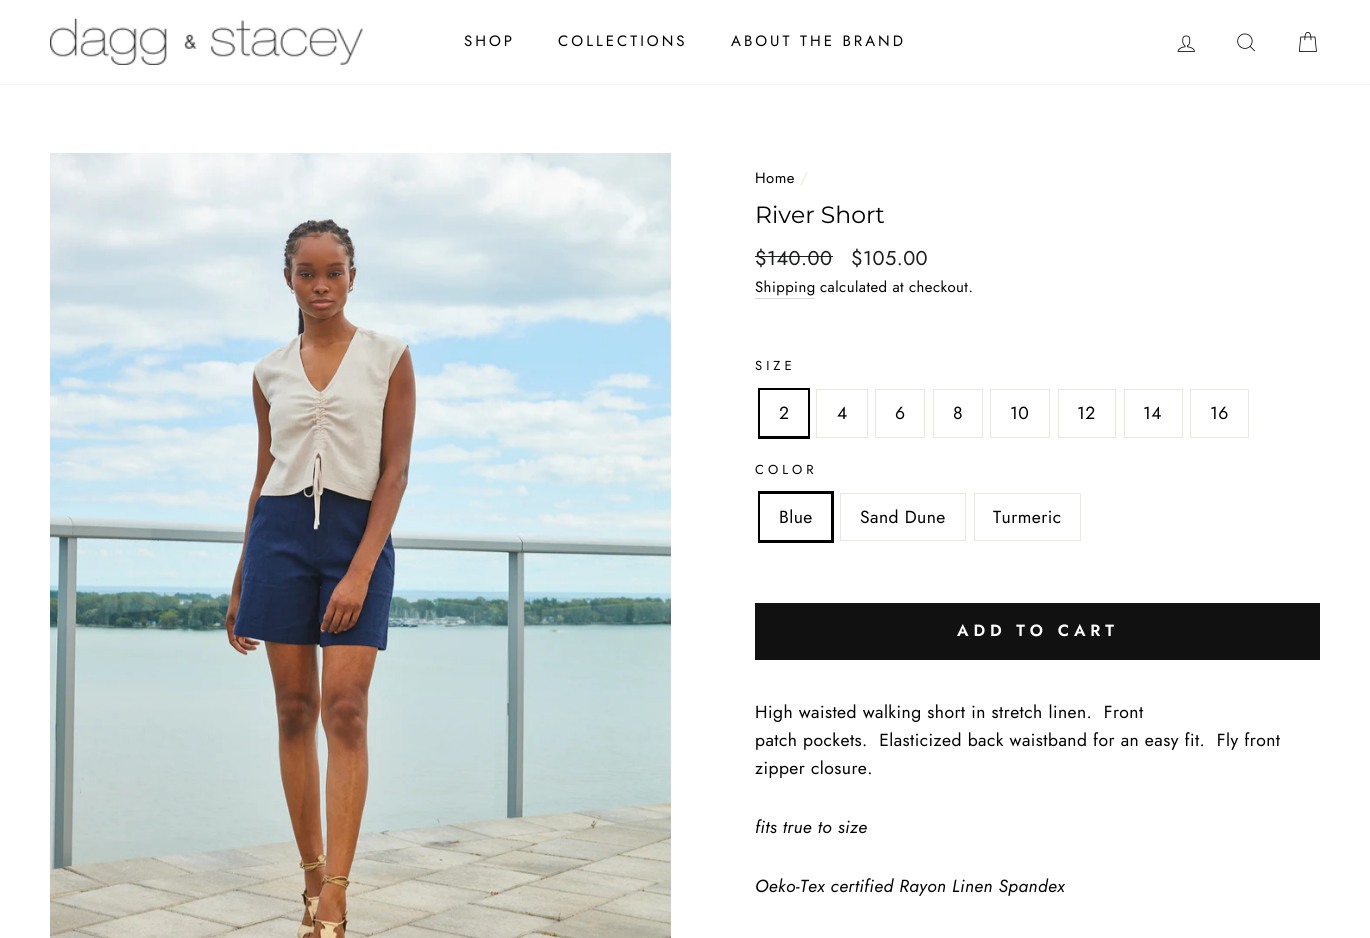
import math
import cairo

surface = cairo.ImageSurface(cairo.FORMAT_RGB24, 1370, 938)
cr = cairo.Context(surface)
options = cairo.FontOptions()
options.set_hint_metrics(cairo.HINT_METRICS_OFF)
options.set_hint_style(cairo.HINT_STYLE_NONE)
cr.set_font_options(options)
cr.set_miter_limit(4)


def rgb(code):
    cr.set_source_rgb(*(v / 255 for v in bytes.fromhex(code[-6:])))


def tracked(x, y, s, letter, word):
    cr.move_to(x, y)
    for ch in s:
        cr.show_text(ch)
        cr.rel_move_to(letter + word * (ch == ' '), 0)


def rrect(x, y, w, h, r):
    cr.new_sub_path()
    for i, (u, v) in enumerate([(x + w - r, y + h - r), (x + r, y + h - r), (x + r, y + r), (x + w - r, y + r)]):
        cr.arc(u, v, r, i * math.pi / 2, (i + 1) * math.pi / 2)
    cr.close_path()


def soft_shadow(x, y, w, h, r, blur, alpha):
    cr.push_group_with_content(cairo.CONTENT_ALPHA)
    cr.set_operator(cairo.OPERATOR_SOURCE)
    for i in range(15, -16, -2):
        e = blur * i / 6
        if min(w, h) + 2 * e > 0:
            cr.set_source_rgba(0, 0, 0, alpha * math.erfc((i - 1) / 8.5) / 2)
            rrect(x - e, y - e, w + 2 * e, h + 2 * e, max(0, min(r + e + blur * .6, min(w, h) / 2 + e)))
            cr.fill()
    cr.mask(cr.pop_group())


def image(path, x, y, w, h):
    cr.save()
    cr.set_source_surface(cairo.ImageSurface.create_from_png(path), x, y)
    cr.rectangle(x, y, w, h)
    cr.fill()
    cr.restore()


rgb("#ffffff")
cr.paint()
rgb("#000000")
soft_shadow(0, 0, 1370, 84, 0, 0.5, 0.2)
rgb("#ffffff")
cr.rectangle(0, 0, 1370, 84)
cr.fill()
image("img/1.png", 50, 18, 313, 47)
image("img/2.png", 1177, 35, 18, 17)
image("img/3.png", 1237, 33, 18, 19)
image("img/4.png", 1298, 32, 19, 20)
image("img/5.png", 50, 153, 621, 785)
rgb("#1c1d1d")
cr.rectangle(755, 256, 78, 1)
cr.fill()
rgb("#d9d9d9")
cr.rectangle(755, 298, 60, 1)
cr.fill()
cr.rectangle(759.5, 389.5, 49, 48)
rgb("#000000")
cr.set_line_width(3)
cr.stroke()
rgb("#ffffff")
cr.rectangle(760, 390, 48, 46)
cr.fill()
cr.rectangle(816.5, 389.5, 51, 48)
rgb("#e8e8e1")
cr.set_line_width(1)
cr.stroke()
cr.rectangle(875.5, 389.5, 49, 48)
cr.stroke()
cr.rectangle(933.5, 389.5, 49, 48)
cr.stroke()
cr.rectangle(990.5, 389.5, 59, 48)
cr.stroke()
cr.rectangle(1058.5, 389.5, 57, 48)
cr.stroke()
cr.rectangle(1124.5, 389.5, 58, 48)
cr.stroke()
cr.rectangle(1190.5, 389.5, 58, 48)
cr.stroke()
cr.rectangle(759.5, 492.5, 73, 49)
rgb("#000000")
cr.set_line_width(3)
cr.stroke()
rgb("#ffffff")
cr.rectangle(760, 494, 1, 46)
cr.fill()
cr.rectangle(840.5, 493.5, 125, 47)
rgb("#e8e8e1")
cr.set_line_width(1)
cr.stroke()
cr.rectangle(974.5, 493.5, 106, 47)
cr.stroke()
rgb("#111111")
cr.rectangle(755, 603, 565, 57)
cr.fill()
cr.select_font_face("Jost")
cr.set_font_size(15)
rgb("#000000")
for x, y, s in [
    (464, 46, "SHOP"),
    (558, 46, "COLLECTIONS"),
    (731, 46, "ABOUT THE BRAND"),
]:
    tracked(x, y, s, 3, 0)
cr.set_font_size(14.9)
tracked(755, 183, "Home", 0.45, 0)
rgb("#e8e8e1")
tracked(800, 183, "/", 0.45, 0)
cr.select_font_face("Montserrat")
cr.set_font_size(23.5)
rgb("#000000")
cr.move_to(755, 223)
cr.show_text("River Short")
cr.select_font_face("Jost")
cr.set_font_size(20)
rgb("#1c1d1d")
tracked(755, 265, "$140.00", 0.45, 0)
tracked(851, 265, "$105.00", 0.45, 0)
cr.set_font_size(14.9)
rgb("#000000")
tracked(755, 292, "Shipping", 0.45, 0)
tracked(820, 292, "calculated at checkout.", 0.45, 0)
cr.set_font_size(13)
tracked(755, 370, "SIZE", 4, 0)
cr.set_font_size(17.5)
for x, y, s in [
    (779, 419, "2"),
    (837, 419, "4"),
    (895, 419, "6"),
    (953, 419, "8"),
    (1010, 419, "10"),
    (1077, 419, "12"),
    (1143, 419, "14"),
    (1210, 419, "16"),
]:
    tracked(x, y, s, 0.45, 0)
cr.set_font_size(13)
tracked(755, 474, "COLOR", 4, 0)
cr.set_font_size(17.5)
for x, y, s in [
    (779, 523, "Blue"),
    (860, 523, "Sand Dune"),
    (993, 523, "Turmeric"),
]:
    tracked(x, y, s, 0.45, 0)
cr.select_font_face("Jost SemiBold")
cr.set_font_size(16.25)
rgb("#ffffff")
tracked(957, 636, "ADD TO CART", 4.9, 0)
cr.select_font_face("Jost")
cr.set_font_size(17.5)
rgb("#000000")
for x, y, s in [
    (755, 718, "High waisted walking short in stretch linen.  Front"),
    (755, 746, "patch pockets.  Elasticized back waistband for an easy fit.  Fly front"),
    (755, 774, "zipper closure."),
]:
    tracked(x, y, s, 0.45, 0)
cr.select_font_face("Jost", cairo.FONT_SLANT_ITALIC)
tracked(755, 833, "fits true to size", 0.45, 0)
tracked(755, 892, "Oeko-Tex certified Rayon Linen Spandex", 0.45, 0)
surface.write_to_png("page.png")
